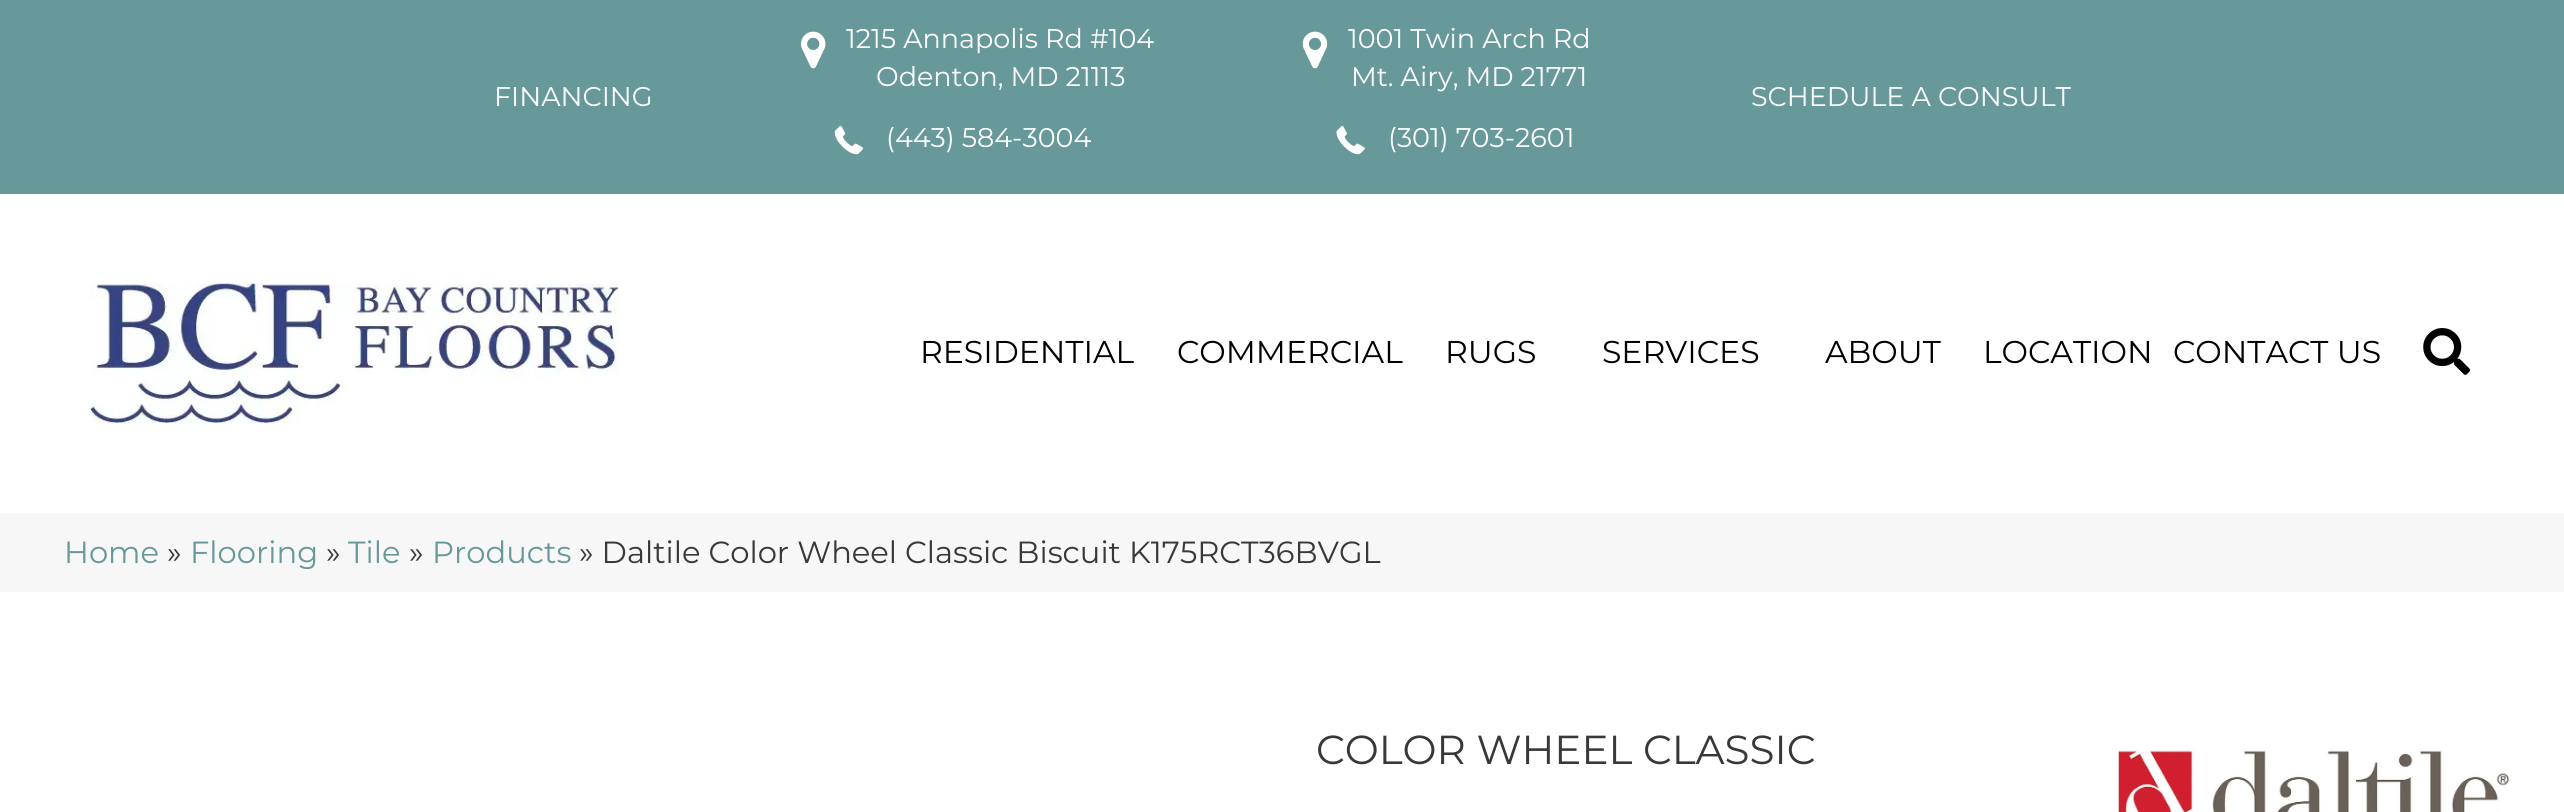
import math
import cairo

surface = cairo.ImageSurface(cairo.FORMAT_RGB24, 2564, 812)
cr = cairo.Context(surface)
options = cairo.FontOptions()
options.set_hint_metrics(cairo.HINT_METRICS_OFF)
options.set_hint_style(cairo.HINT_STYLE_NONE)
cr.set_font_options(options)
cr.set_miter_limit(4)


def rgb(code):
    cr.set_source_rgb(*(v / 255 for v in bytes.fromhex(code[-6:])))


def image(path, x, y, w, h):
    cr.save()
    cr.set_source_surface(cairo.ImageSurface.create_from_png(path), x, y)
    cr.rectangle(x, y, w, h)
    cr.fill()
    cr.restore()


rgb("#ffffff")
cr.paint()
rgb("#67999a")
cr.rectangle(0, 0, 2564, 194)
cr.fill()
image("img/1.png", 801, 31, 25, 38)
image("img/2.png", 834, 125, 30, 30)
image("img/3.png", 1302, 31, 26, 38)
image("img/4.png", 1336, 125, 29, 30)
image("img/5.png", 90, 283, 529, 140)
image("img/6.png", 2423, 328, 47, 47)
rgb("#f7f7f7")
cr.rectangle(0, 513, 2564, 79)
cr.fill()
image("img/7.png", 2117, 748, 393, 64)
cr.select_font_face("Montserrat")
cr.set_font_size(27)
rgb("#ffffff")
for x, y, s in [
    (494, 106, "FINANCING"),
    (846, 48, "1215 Annapolis Rd #104"),
    (876, 86, "Odenton, MD 21113"),
    (886, 147, "(443) 584-3004"),
    (1348, 48, "1001 Twin Arch Rd"),
    (1351, 86, "Mt. Airy, MD 21771"),
    (1388, 147, "(301) 703-2601"),
    (1751, 106, "SCHEDULE A CONSULT"),
]:
    cr.move_to(x, y)
    cr.show_text(s)
cr.set_font_size(31.5)
rgb("#000000")
for x, y, s in [
    (920, 363, "RESIDENTIAL"),
    (1177, 363, "COMMERCIAL"),
    (1445, 363, "RUGS"),
    (1602, 363, "SERVICES"),
    (1825, 363, "ABOUT"),
    (1983, 363, "LOCATION"),
    (2173, 363, "CONTACT US"),
]:
    cr.move_to(x, y)
    cr.show_text(s)
cr.set_font_size(30.6)
rgb("#67999a")
cr.move_to(64, 563)
cr.show_text("Home")
rgb("#383838")
cr.move_to(167, 563)
cr.show_text("»")
rgb("#67999a")
cr.move_to(190, 563)
cr.show_text("Flooring")
rgb("#383838")
cr.move_to(326, 563)
cr.show_text("»")
rgb("#67999a")
cr.move_to(348, 563)
cr.show_text("Tile")
rgb("#383838")
cr.move_to(409, 563)
cr.show_text("»")
rgb("#67999a")
cr.move_to(432, 563)
cr.show_text("Products")
rgb("#383838")
cr.move_to(579, 563)
cr.show_text("» Daltile Color Wheel Classic Biscuit K175RCT36BVGL")
cr.set_font_size(40.5)
cr.move_to(1316, 764)
cr.show_text("COLOR WHEEL CLASSIC")
surface.write_to_png("page.png")
